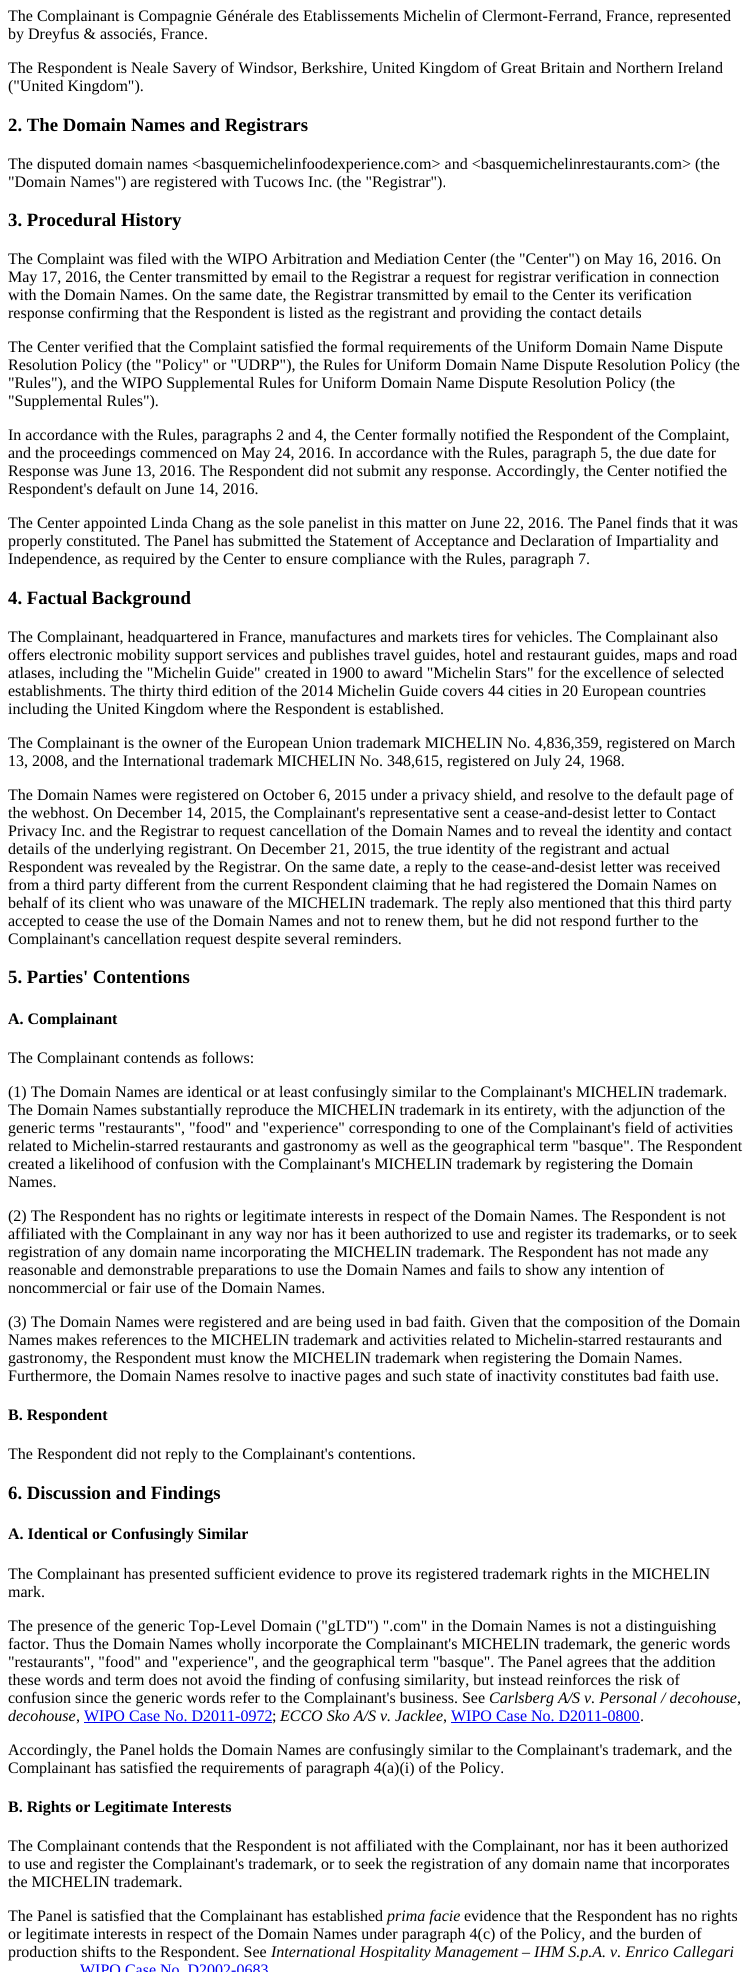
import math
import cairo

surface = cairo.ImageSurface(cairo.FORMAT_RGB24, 751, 1972)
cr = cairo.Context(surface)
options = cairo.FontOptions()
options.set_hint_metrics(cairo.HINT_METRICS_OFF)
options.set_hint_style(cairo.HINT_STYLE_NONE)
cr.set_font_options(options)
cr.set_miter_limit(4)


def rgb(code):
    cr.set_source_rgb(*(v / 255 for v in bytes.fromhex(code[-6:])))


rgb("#ffffff")
cr.paint()
rgb("#0000ee")
cr.rectangle(84, 1722, 188, 1)
cr.fill()
cr.rectangle(451, 1722, 189, 1)
cr.fill()
cr.select_font_face("Liberation Serif")
cr.set_font_size(16)
rgb("#000000")
for x, y, s in [
    (8, 21, "The Complainant is Compagnie Générale des Etablissements Michelin of Clermont-Ferrand, France, represented"),
    (8, 39, "by Dreyfus & associés, France."),
    (8, 73, "The Respondent is Neale Savery of Windsor, Berkshire, United Kingdom of Great Britain and Northern Ireland"),
    (8, 91, "(\"United Kingdom\")."),
]:
    cr.move_to(x, y)
    cr.show_text(s)
cr.select_font_face("Liberation Serif", cairo.FONT_SLANT_NORMAL, cairo.FONT_WEIGHT_BOLD)
cr.set_font_size(18.75)
cr.move_to(8, 131)
cr.show_text("2. The Domain Names and Registrars")
cr.select_font_face("Liberation Serif")
cr.set_font_size(16)
cr.move_to(8, 169)
cr.show_text("The disputed domain names <basquemichelinfoodexperience.com> and <basquemichelinrestaurants.com> (the")
cr.move_to(8, 187)
cr.show_text("\"Domain Names\") are registered with Tucows Inc. (the \"Registrar\").")
cr.select_font_face("Liberation Serif", cairo.FONT_SLANT_NORMAL, cairo.FONT_WEIGHT_BOLD)
cr.set_font_size(18.75)
cr.move_to(8, 226)
cr.show_text("3. Procedural History")
cr.select_font_face("Liberation Serif")
cr.set_font_size(16)
for x, y, s in [
    (8, 264, "The Complaint was filed with the WIPO Arbitration and Mediation Center (the \"Center\") on May 16, 2016. On"),
    (8, 282, "May 17, 2016, the Center transmitted by email to the Registrar a request for registrar verification in connection"),
    (8, 300, "with the Domain Names. On the same date, the Registrar transmitted by email to the Center its verification"),
    (8, 318, "response confirming that the Respondent is listed as the registrant and providing the contact details"),
    (8, 352, "The Center verified that the Complaint satisfied the formal requirements of the Uniform Domain Name Dispute"),
    (8, 370, "Resolution Policy (the \"Policy\" or \"UDRP\"), the Rules for Uniform Domain Name Dispute Resolution Policy (the"),
    (8, 388, "\"Rules\"), and the WIPO Supplemental Rules for Uniform Domain Name Dispute Resolution Policy (the"),
    (8, 406, "\"Supplemental Rules\")."),
    (8, 440, "In accordance with the Rules, paragraphs 2 and 4, the Center formally notified the Respondent of the Complaint,"),
    (8, 458, "and the proceedings commenced on May 24, 2016. In accordance with the Rules, paragraph 5, the due date for"),
    (8, 476, "Response was June 13, 2016. The Respondent did not submit any response. Accordingly, the Center notified the"),
    (8, 494, "Respondent's default on June 14, 2016."),
    (8, 528, "The Center appointed Linda Chang as the sole panelist in this matter on June 22, 2016. The Panel finds that it was"),
    (8, 546, "properly constituted. The Panel has submitted the Statement of Acceptance and Declaration of Impartiality and"),
    (8, 564, "Independence, as required by the Center to ensure compliance with the Rules, paragraph 7."),
]:
    cr.move_to(x, y)
    cr.show_text(s)
cr.select_font_face("Liberation Serif", cairo.FONT_SLANT_NORMAL, cairo.FONT_WEIGHT_BOLD)
cr.set_font_size(18.75)
cr.move_to(8, 604)
cr.show_text("4. Factual Background")
cr.select_font_face("Liberation Serif")
cr.set_font_size(16)
for x, y, s in [
    (8, 642, "The Complainant, headquartered in France, manufactures and markets tires for vehicles. The Complainant also"),
    (8, 660, "offers electronic mobility support services and publishes travel guides, hotel and restaurant guides, maps and road"),
    (8, 678, "atlases, including the \"Michelin Guide\" created in 1900 to award \"Michelin Stars\" for the excellence of selected"),
    (8, 696, "establishments. The thirty third edition of the 2014 Michelin Guide covers 44 cities in 20 European countries"),
    (8, 714, "including the United Kingdom where the Respondent is established."),
    (8, 748, "The Complainant is the owner of the European Union trademark MICHELIN No. 4,836,359, registered on March"),
    (8, 766, "13, 2008, and the International trademark MICHELIN No. 348,615, registered on July 24, 1968."),
    (8, 800, "The Domain Names were registered on October 6, 2015 under a privacy shield, and resolve to the default page of"),
    (8, 818, "the webhost. On December 14, 2015, the Complainant's representative sent a cease-and-desist letter to Contact"),
    (8, 836, "Privacy Inc. and the Registrar to request cancellation of the Domain Names and to reveal the identity and contact"),
    (8, 854, "details of the underlying registrant. On December 21, 2015, the true identity of the registrant and actual"),
    (8, 872, "Respondent was revealed by the Registrar. On the same date, a reply to the cease-and-desist letter was received"),
    (8, 890, "from a third party different from the current Respondent claiming that he had registered the Domain Names on"),
    (8, 908, "behalf of its client who was unaware of the MICHELIN trademark. The reply also mentioned that this third party"),
    (8, 926, "accepted to cease the use of the Domain Names and not to renew them, but he did not respond further to the"),
    (8, 944, "Complainant's cancellation request despite several reminders."),
]:
    cr.move_to(x, y)
    cr.show_text(s)
cr.select_font_face("Liberation Serif", cairo.FONT_SLANT_NORMAL, cairo.FONT_WEIGHT_BOLD)
cr.set_font_size(18.75)
cr.move_to(8, 983)
cr.show_text("5. Parties' Contentions")
cr.set_font_size(16)
cr.move_to(8, 1024)
cr.show_text("A. Complainant")
cr.select_font_face("Liberation Serif")
for x, y, s in [
    (8, 1063, "The Complainant contends as follows:"),
    (8, 1097, "(1) The Domain Names are identical or at least confusingly similar to the Complainant's MICHELIN trademark."),
    (8, 1115, "The Domain Names substantially reproduce the MICHELIN trademark in its entirety, with the adjunction of the"),
    (8, 1133, "generic terms \"restaurants\", \"food\" and \"experience\" corresponding to one of the Complainant's field of activities"),
    (8, 1151, "related to Michelin-starred restaurants and gastronomy as well as the geographical term \"basque\". The Respondent"),
    (8, 1169, "created a likelihood of confusion with the Complainant's MICHELIN trademark by registering the Domain"),
    (8, 1187, "Names."),
    (8, 1221, "(2) The Respondent has no rights or legitimate interests in respect of the Domain Names. The Respondent is not"),
    (8, 1239, "affiliated with the Complainant in any way nor has it been authorized to use and register its trademarks, or to seek"),
    (8, 1257, "registration of any domain name incorporating the MICHELIN trademark. The Respondent has not made any"),
    (8, 1275, "reasonable and demonstrable preparations to use the Domain Names and fails to show any intention of"),
    (8, 1293, "noncommercial or fair use of the Domain Names."),
    (8, 1327, "(3) The Domain Names were registered and are being used in bad faith. Given that the composition of the Domain"),
    (8, 1345, "Names makes references to the MICHELIN trademark and activities related to Michelin-starred restaurants and"),
    (8, 1363, "gastronomy, the Respondent must know the MICHELIN trademark when registering the Domain Names."),
    (8, 1381, "Furthermore, the Domain Names resolve to inactive pages and such state of inactivity constitutes bad faith use."),
]:
    cr.move_to(x, y)
    cr.show_text(s)
cr.select_font_face("Liberation Serif", cairo.FONT_SLANT_NORMAL, cairo.FONT_WEIGHT_BOLD)
cr.move_to(8, 1420)
cr.show_text("B. Respondent")
cr.select_font_face("Liberation Serif")
cr.move_to(8, 1459)
cr.show_text("The Respondent did not reply to the Complainant's contentions.")
cr.select_font_face("Liberation Serif", cairo.FONT_SLANT_NORMAL, cairo.FONT_WEIGHT_BOLD)
cr.set_font_size(18.75)
cr.move_to(8, 1499)
cr.show_text("6. Discussion and Findings")
cr.set_font_size(16)
cr.move_to(8, 1539)
cr.show_text("A. Identical or Confusingly Similar")
cr.select_font_face("Liberation Serif")
for x, y, s in [
    (8, 1579, "The Complainant has presented sufficient evidence to prove its registered trademark rights in the MICHELIN"),
    (8, 1597, "mark."),
    (8, 1631, "The presence of the generic Top-Level Domain (\"gLTD\") \".com\" in the Domain Names is not a distinguishing"),
    (8, 1649, "factor. Thus the Domain Names wholly incorporate the Complainant's MICHELIN trademark, the generic words"),
    (8, 1667, "\"restaurants\", \"food\" and \"experience\", and the geographical term \"basque\". The Panel agrees that the addition"),
    (8, 1685, "these words and term does not avoid the finding of confusing similarity, but instead reinforces the risk of"),
    (8, 1703, "confusion since the generic words refer to the Complainant's business. See"),
]:
    cr.move_to(x, y)
    cr.show_text(s)
cr.select_font_face("Liberation Serif", cairo.FONT_SLANT_ITALIC)
cr.move_to(489, 1703)
cr.show_text("Carlsberg A/S v. Personal / decohouse")
cr.select_font_face("Liberation Serif")
cr.move_to(737, 1703)
cr.show_text(",")
cr.select_font_face("Liberation Serif", cairo.FONT_SLANT_ITALIC)
cr.move_to(8, 1721)
cr.show_text("decohouse")
cr.select_font_face("Liberation Serif")
cr.move_to(76, 1721)
cr.show_text(",")
rgb("#0000ee")
cr.move_to(84, 1721)
cr.show_text("WIPO Case No. D2011-0972")
rgb("#000000")
cr.move_to(272, 1721)
cr.show_text(";")
cr.select_font_face("Liberation Serif", cairo.FONT_SLANT_ITALIC)
cr.move_to(280, 1721)
cr.show_text("ECCO Sko A/S v. Jacklee")
cr.select_font_face("Liberation Serif")
cr.move_to(443, 1721)
cr.show_text(",")
rgb("#0000ee")
cr.move_to(451, 1721)
cr.show_text("WIPO Case No. D2011-0800")
rgb("#000000")
for x, y, s in [
    (640, 1721, "."),
    (8, 1755, "Accordingly, the Panel holds the Domain Names are confusingly similar to the Complainant's trademark, and the"),
    (8, 1773, "Complainant has satisfied the requirements of paragraph 4(a)(i) of the Policy."),
]:
    cr.move_to(x, y)
    cr.show_text(s)
cr.select_font_face("Liberation Serif", cairo.FONT_SLANT_NORMAL, cairo.FONT_WEIGHT_BOLD)
cr.move_to(8, 1812)
cr.show_text("B. Rights or Legitimate Interests")
cr.select_font_face("Liberation Serif")
for x, y, s in [
    (8, 1851, "The Complainant contends that the Respondent is not affiliated with the Complainant, nor has it been authorized"),
    (8, 1869, "to use and register the Complainant's trademark, or to seek the registration of any domain name that incorporates"),
    (8, 1887, "the MICHELIN trademark."),
    (8, 1921, "The Panel is satisfied that the Complainant has established"),
]:
    cr.move_to(x, y)
    cr.show_text(s)
cr.select_font_face("Liberation Serif", cairo.FONT_SLANT_ITALIC)
cr.move_to(387, 1921)
cr.show_text("prima facie")
cr.select_font_face("Liberation Serif")
for x, y, s in [
    (464, 1921, "evidence that the Respondent has no rights"),
    (8, 1939, "or legitimate interests in respect of the Domain Names under paragraph 4(c) of the Policy, and the burden of"),
    (8, 1957, "production shifts to the Respondent. See"),
]:
    cr.move_to(x, y)
    cr.show_text(s)
cr.select_font_face("Liberation Serif", cairo.FONT_SLANT_ITALIC)
cr.move_to(271, 1957)
cr.show_text("International Hospitality Management – IHM S.p.A. v. Enrico Callegari")
cr.select_font_face("Liberation Serif")
rgb("#0000ee")
cr.move_to(80, 1975)
cr.show_text("WIPO Case No. D2002-0683")
surface.write_to_png("page.png")
